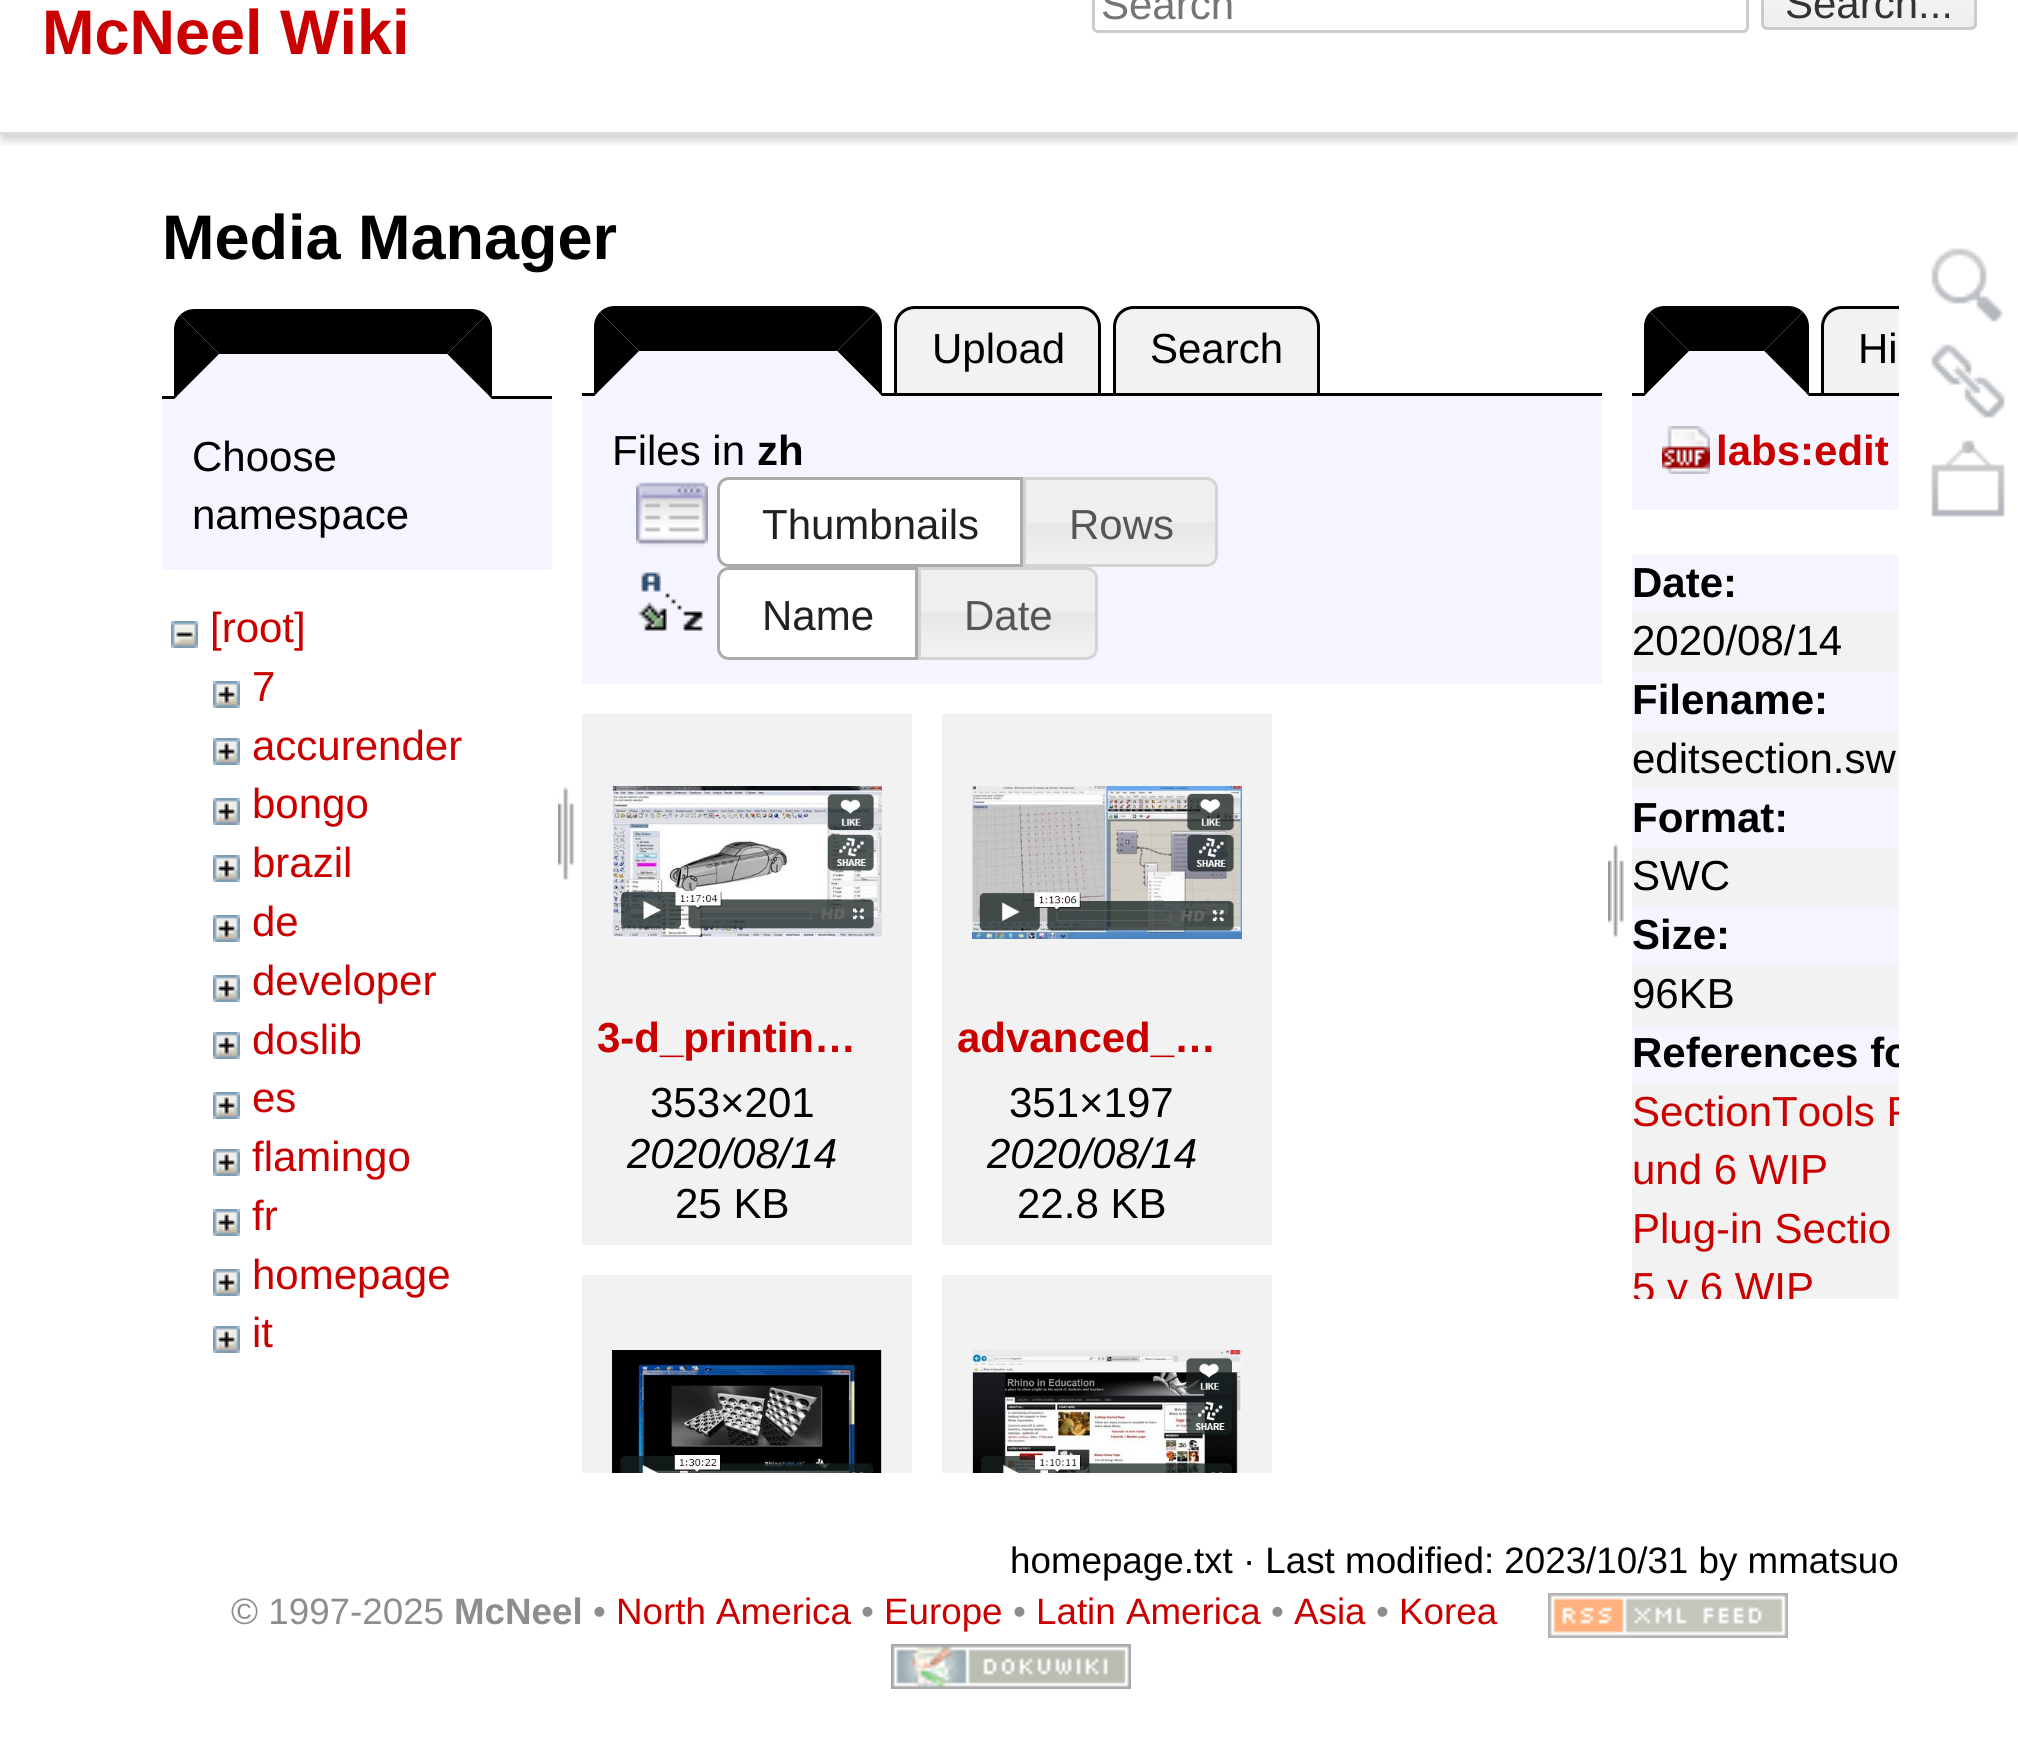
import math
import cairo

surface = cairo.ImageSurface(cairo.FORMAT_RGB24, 2018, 1749)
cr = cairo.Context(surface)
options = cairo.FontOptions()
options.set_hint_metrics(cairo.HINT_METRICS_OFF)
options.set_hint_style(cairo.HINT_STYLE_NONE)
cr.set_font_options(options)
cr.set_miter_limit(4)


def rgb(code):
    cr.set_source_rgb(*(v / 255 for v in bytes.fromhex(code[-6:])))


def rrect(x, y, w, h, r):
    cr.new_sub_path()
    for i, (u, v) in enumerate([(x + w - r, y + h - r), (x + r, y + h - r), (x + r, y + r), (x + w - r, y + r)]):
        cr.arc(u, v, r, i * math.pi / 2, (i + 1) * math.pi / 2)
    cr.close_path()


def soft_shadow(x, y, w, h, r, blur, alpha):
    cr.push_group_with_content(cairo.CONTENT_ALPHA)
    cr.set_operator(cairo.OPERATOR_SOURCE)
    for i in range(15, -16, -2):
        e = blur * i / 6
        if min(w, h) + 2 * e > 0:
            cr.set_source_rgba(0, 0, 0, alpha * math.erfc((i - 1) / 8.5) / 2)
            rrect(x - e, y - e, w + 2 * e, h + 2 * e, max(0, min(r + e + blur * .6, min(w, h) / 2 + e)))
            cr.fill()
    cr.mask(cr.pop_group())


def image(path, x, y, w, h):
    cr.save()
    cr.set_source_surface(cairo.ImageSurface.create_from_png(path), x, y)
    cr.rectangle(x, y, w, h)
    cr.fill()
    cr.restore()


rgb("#ffffff")
cr.paint()
cr.save()
cr.rectangle(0, 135, 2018, 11)
cr.clip()
rgb("#000000")
soft_shadow(3, -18, 2013, 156, 0, 6, 0.25)
cr.restore()
rgb("#dddddd")
cr.rectangle(0, 132, 2018, 3)
cr.fill()
rrect(1093.5, -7.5, 654, 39, 4.5)
rgb("#cccccc")
cr.set_line_width(3)
cr.stroke()
image("img/1.png", 1761, 0, 216, 30)
rrect(1762.5, -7.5, 213, 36, 4.5)
cr.stroke()
rgb("#000000")
cr.new_path()
cr.move_to(195, 309)
cr.line_to(471, 309)
cr.curve_to(477, 309, 482, 311, 486, 315)
cr.line_to(447, 354)
cr.line_to(219, 354)
cr.line_to(180, 315)
cr.curve_to(184, 311, 189, 309, 195, 309)
cr.close_path()
cr.fill()
cr.rectangle(162, 396, 390, 3)
cr.fill()
cr.new_path()
cr.move_to(486, 315)
cr.line_to(447, 354)
cr.line_to(492, 399)
cr.line_to(492, 330)
cr.curve_to(492, 324, 490, 319, 486, 315)
cr.close_path()
cr.fill()
rgb("#f5f5ff")
cr.new_path()
cr.move_to(492, 399)
cr.line_to(447, 354)
cr.line_to(219, 354)
cr.line_to(174, 399)
cr.close_path()
cr.fill()
rgb("#000000")
cr.new_path()
cr.move_to(174, 399)
cr.line_to(174, 330)
cr.curve_to(174, 324, 176, 319, 180, 315)
cr.line_to(219, 354)
cr.close_path()
cr.fill()
rgb("#f5f5ff")
cr.rectangle(162, 399, 390, 171)
cr.fill()
image("img/2.png", 171, 621, 27, 27)
image("img/3.png", 213, 681, 27, 27)
image("img/3.png", 213, 738, 27, 27)
image("img/3.png", 213, 798, 27, 27)
image("img/3.png", 213, 855, 27, 27)
image("img/3.png", 213, 915, 27, 27)
image("img/3.png", 213, 975, 27, 27)
image("img/3.png", 213, 1032, 27, 27)
image("img/3.png", 213, 1092, 27, 27)
image("img/3.png", 213, 1149, 27, 27)
image("img/3.png", 213, 1209, 27, 27)
image("img/3.png", 213, 1269, 27, 27)
image("img/3.png", 213, 1326, 27, 27)
image("img/4.png", 558, 786, 17, 94)
rgb("#000000")
cr.new_path()
cr.move_to(615, 306)
cr.line_to(861, 306)
cr.curve_to(867, 306, 872, 308, 876, 312)
cr.line_to(837, 351)
cr.line_to(639, 351)
cr.line_to(600, 312)
cr.curve_to(604, 308, 609, 306, 615, 306)
cr.close_path()
cr.fill()
rgb("#f2f2f2")
cr.new_path()
cr.move_to(915, 307.5)
cr.line_to(1080, 307.5)
cr.curve_to(1091, 307.5, 1099.5, 316, 1099.5, 327)
cr.line_to(1099.5, 394.5)
cr.line_to(895.5, 394.5)
cr.line_to(895.5, 327)
cr.curve_to(895.5, 316, 904, 307.5, 915, 307.5)
cr.close_path()
cr.fill_preserve()
rgb("#000000")
cr.stroke()
rgb("#f2f2f2")
cr.new_path()
cr.move_to(1134, 307.5)
cr.line_to(1299, 307.5)
cr.curve_to(1310, 307.5, 1318.5, 316, 1318.5, 327)
cr.line_to(1318.5, 394.5)
cr.line_to(1114.5, 394.5)
cr.line_to(1114.5, 327)
cr.curve_to(1114.5, 316, 1123, 307.5, 1134, 307.5)
cr.close_path()
cr.fill_preserve()
rgb("#000000")
cr.stroke()
cr.rectangle(582, 393, 1020, 3)
cr.fill()
cr.new_path()
cr.move_to(876, 312)
cr.line_to(837, 351)
cr.line_to(882, 396)
cr.line_to(882, 327)
cr.curve_to(882, 321, 880, 316, 876, 312)
cr.close_path()
cr.fill()
rgb("#f5f5ff")
cr.new_path()
cr.move_to(882, 396)
cr.line_to(837, 351)
cr.line_to(639, 351)
cr.line_to(594, 396)
cr.close_path()
cr.fill()
rgb("#000000")
cr.new_path()
cr.move_to(594, 396)
cr.line_to(594, 327)
cr.curve_to(594, 321, 596, 316, 600, 312)
cr.line_to(639, 351)
cr.close_path()
cr.fill()
rgb("#f5f5ff")
cr.rectangle(582, 396, 1020, 288)
cr.fill()
image("img/5.png", 636, 482, 72, 65)
rgb("#ffffff")
cr.new_path()
cr.move_to(729, 478.5)
cr.line_to(1021.5, 478.5)
cr.line_to(1021.5, 565.5)
cr.line_to(729, 565.5)
cr.curve_to(723, 565.5, 718.5, 561, 718.5, 555)
cr.line_to(718.5, 489)
cr.curve_to(718.5, 483, 723, 478.5, 729, 478.5)
cr.close_path()
cr.fill_preserve()
rgb("#aaaaaa")
cr.stroke()
image("img/6.png", 1026, 477, 192, 90)
cr.new_path()
cr.move_to(1024.5, 478.5)
cr.line_to(1206, 478.5)
cr.curve_to(1212, 478.5, 1216.5, 483, 1216.5, 489)
cr.line_to(1216.5, 555)
cr.curve_to(1216.5, 561, 1212, 565.5, 1206, 565.5)
cr.line_to(1024.5, 565.5)
cr.close_path()
rgb("#d3d3d3")
cr.stroke()
image("img/7.png", 638, 572, 65, 59)
rgb("#ffffff")
cr.new_path()
cr.move_to(729, 568.5)
cr.line_to(916.5, 568.5)
cr.line_to(916.5, 658.5)
cr.line_to(729, 658.5)
cr.curve_to(723, 658.5, 718.5, 654, 718.5, 648)
cr.line_to(718.5, 579)
cr.curve_to(718.5, 573, 723, 568.5, 729, 568.5)
cr.close_path()
cr.fill_preserve()
rgb("#aaaaaa")
cr.stroke()
image("img/8.png", 921, 567, 177, 93)
cr.new_path()
cr.move_to(919.5, 568.5)
cr.line_to(1086, 568.5)
cr.curve_to(1092, 568.5, 1096.5, 573, 1096.5, 579)
cr.line_to(1096.5, 648)
cr.curve_to(1096.5, 654, 1092, 658.5, 1086, 658.5)
cr.line_to(919.5, 658.5)
cr.close_path()
rgb("#d3d3d3")
cr.stroke()
image("img/9.png", 1608, 843, 16, 94)
rgb("#f2f2f2")
cr.rectangle(582, 714, 330, 531)
cr.fill()
image("img/10.png", 612, 786, 270, 153)
cr.rectangle(942, 714, 330, 531)
cr.fill()
image("img/11.png", 972, 786, 270, 153)
cr.rectangle(582, 1275, 330, 198)
cr.fill()
image("img/12.png", 612, 1350, 270, 123)
cr.rectangle(942, 1275, 330, 198)
cr.fill()
image("img/13.png", 972, 1350, 270, 123)
rgb("#000000")
cr.new_path()
cr.move_to(1665, 306)
cr.line_to(1788, 306)
cr.curve_to(1794, 306, 1799, 308, 1803, 312)
cr.line_to(1764, 351)
cr.line_to(1689, 351)
cr.line_to(1650, 312)
cr.curve_to(1654, 308, 1659, 306, 1665, 306)
cr.close_path()
cr.fill()
cr.rectangle(1632, 393, 189, 3)
cr.fill()
cr.new_path()
cr.move_to(1803, 312)
cr.line_to(1764, 351)
cr.line_to(1809, 396)
cr.line_to(1809, 327)
cr.curve_to(1809, 321, 1807, 316, 1803, 312)
cr.close_path()
cr.fill()
rgb("#f5f5ff")
cr.new_path()
cr.move_to(1809, 396)
cr.line_to(1764, 351)
cr.line_to(1689, 351)
cr.line_to(1644, 396)
cr.close_path()
cr.fill()
rgb("#000000")
cr.new_path()
cr.move_to(1644, 396)
cr.line_to(1644, 327)
cr.curve_to(1644, 321, 1646, 316, 1650, 312)
cr.line_to(1689, 351)
cr.close_path()
cr.fill()
rgb("#f2f2f2")
cr.new_path()
cr.move_to(1842, 306)
cr.line_to(1899, 306)
cr.line_to(1899, 396)
cr.line_to(1821, 396)
cr.line_to(1821, 327)
cr.curve_to(1821, 315.5, 1830.5, 306, 1842, 306)
cr.close_path()
cr.fill()
rgb("#000000")
cr.new_path()
cr.move_to(1842, 306)
cr.curve_to(1830, 306, 1821, 315, 1821, 327)
cr.line_to(1821, 396)
cr.line_to(1899, 396)
cr.line_to(1899, 393)
cr.line_to(1824, 393)
cr.line_to(1824, 327)
cr.curve_to(1824, 317, 1832, 309, 1842, 309)
cr.line_to(1899, 309)
cr.line_to(1899, 306)
cr.close_path()
cr.fill()
rgb("#f5f5ff")
cr.rectangle(1632, 396, 267, 114)
cr.fill()
image("img/14.png", 1662, 426, 48, 48)
for x, y, w, h, color in [
    (1632, 555, 267, 57, "#f5f5ff"),
    (1632, 612, 267, 60, "#f2f2f2"),
    (1632, 672, 267, 60, "#f5f5ff"),
    (1632, 732, 267, 57, "#f2f2f2"),
    (1632, 789, 267, 60, "#f5f5ff"),
    (1632, 849, 267, 57, "#f2f2f2"),
    (1632, 906, 267, 60, "#f5f5ff"),
    (1632, 966, 267, 60, "#f2f2f2"),
    (1632, 1026, 267, 57, "#f5f5ff"),
    (1632, 1083, 267, 216, "#f2f2f2"),
]:
    rgb(color)
    cr.rectangle(x, y, w, h)
    cr.fill()
image("img/15.png", 1931, 248, 74, 74)
image("img/16.png", 1931, 344, 74, 74)
image("img/17.png", 1931, 440, 74, 77)
image("img/18.png", 1548, 1593, 240, 45)
image("img/19.png", 891, 1644, 240, 45)
cr.select_font_face("Liberation Sans", cairo.FONT_SLANT_NORMAL, cairo.FONT_WEIGHT_BOLD)
cr.set_font_size(63)
rgb("#ca0000")
cr.move_to(42, 54)
cr.show_text("McNeel Wiki")
cr.select_font_face("Liberation Sans")
cr.set_font_size(42)
rgb("#757575")
cr.move_to(1101, 19)
cr.show_text("Search")
rgb("#333333")
cr.move_to(1785, 18)
cr.show_text("Search...")
cr.select_font_face("Liberation Sans", cairo.FONT_SLANT_NORMAL, cairo.FONT_WEIGHT_BOLD)
cr.set_font_size(63)
rgb("#000000")
cr.move_to(162, 259)
cr.show_text("Media Manager")
cr.select_font_face("Liberation Sans")
cr.set_font_size(42)
cr.move_to(192, 471)
cr.show_text("Choose")
cr.move_to(192, 529)
cr.show_text("namespace")
rgb("#ca0000")
for x, y, s in [
    (210, 642, "[root]"),
    (252, 701, "7"),
    (252, 760, "accurender"),
    (252, 818, "bongo"),
    (252, 877, "brazil"),
    (252, 936, "de"),
    (252, 995, "developer"),
    (252, 1054, "doslib"),
    (252, 1112, "es"),
    (252, 1171, "flamingo"),
    (252, 1230, "fr"),
    (252, 1289, "homepage"),
    (252, 1347, "it"),
]:
    cr.move_to(x, y)
    cr.show_text(s)
rgb("#000000")
for x, y, s in [
    (932, 363, "Upload"),
    (1150, 363, "Search"),
    (612, 465, "Files in"),
]:
    cr.move_to(x, y)
    cr.show_text(s)
cr.select_font_face("Liberation Sans", cairo.FONT_SLANT_NORMAL, cairo.FONT_WEIGHT_BOLD)
cr.move_to(757, 465)
cr.show_text("zh")
cr.select_font_face("Liberation Sans")
rgb("#212121")
cr.move_to(762, 539)
cr.show_text("Thumbnails")
rgb("#555555")
cr.move_to(1069, 539)
cr.show_text("Rows")
rgb("#212121")
cr.move_to(762, 630)
cr.show_text("Name")
rgb("#555555")
cr.move_to(964, 630)
cr.show_text("Date")
cr.select_font_face("Liberation Sans", cairo.FONT_SLANT_NORMAL, cairo.FONT_WEIGHT_BOLD)
rgb("#ca0000")
cr.move_to(597, 1052)
cr.show_text("3-d_printin…")
cr.select_font_face("Liberation Sans")
rgb("#000000")
cr.move_to(650, 1117)
cr.show_text("353×201")
cr.select_font_face("Liberation Sans", cairo.FONT_SLANT_ITALIC)
cr.move_to(627, 1168)
cr.show_text("2020/08/14")
cr.select_font_face("Liberation Sans")
cr.move_to(675, 1218)
cr.show_text("25 KB")
cr.select_font_face("Liberation Sans", cairo.FONT_SLANT_NORMAL, cairo.FONT_WEIGHT_BOLD)
rgb("#ca0000")
cr.move_to(957, 1052)
cr.show_text("advanced_…")
cr.select_font_face("Liberation Sans")
rgb("#000000")
cr.move_to(1009, 1117)
cr.show_text("351×197")
cr.select_font_face("Liberation Sans", cairo.FONT_SLANT_ITALIC)
cr.move_to(987, 1168)
cr.show_text("2020/08/14")
cr.select_font_face("Liberation Sans")
cr.move_to(1017, 1218)
cr.show_text("22.8 KB")
cr.move_to(1858, 363)
cr.show_text("Hi")
cr.select_font_face("Liberation Sans", cairo.FONT_SLANT_NORMAL, cairo.FONT_WEIGHT_BOLD)
rgb("#ca0000")
cr.move_to(1716, 465)
cr.show_text("labs:edit")
rgb("#000000")
cr.move_to(1632, 597)
cr.show_text("Date:")
cr.select_font_face("Liberation Sans")
cr.move_to(1632, 655)
cr.show_text("2020/08/14")
cr.select_font_face("Liberation Sans", cairo.FONT_SLANT_NORMAL, cairo.FONT_WEIGHT_BOLD)
cr.move_to(1632, 714)
cr.show_text("Filename:")
cr.select_font_face("Liberation Sans")
cr.move_to(1632, 773)
cr.show_text("editsection.sw")
cr.select_font_face("Liberation Sans", cairo.FONT_SLANT_NORMAL, cairo.FONT_WEIGHT_BOLD)
cr.move_to(1632, 832)
cr.show_text("Format:")
cr.select_font_face("Liberation Sans")
cr.move_to(1632, 890)
cr.show_text("SWC")
cr.select_font_face("Liberation Sans", cairo.FONT_SLANT_NORMAL, cairo.FONT_WEIGHT_BOLD)
cr.move_to(1632, 949)
cr.show_text("Size:")
cr.select_font_face("Liberation Sans")
cr.move_to(1632, 1008)
cr.show_text("96KB")
cr.save()
rrect(120, 156, 1779, 1359, 6)
cr.clip()
cr.select_font_face("Liberation Sans", cairo.FONT_SLANT_NORMAL, cairo.FONT_WEIGHT_BOLD)
cr.move_to(1632, 1067)
cr.show_text("References fo")
cr.select_font_face("Liberation Sans")
rgb("#ca0000")
cr.move_to(1632, 1126)
cr.show_text("SectionTools P")
cr.restore()
rgb("#ca0000")
cr.move_to(1632, 1184)
cr.show_text("und 6 WIP")
cr.move_to(1632, 1243)
cr.show_text("Plug-in Sectio")
cr.save()
cr.rectangle(1632, 540, 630, 759)
cr.clip()
cr.move_to(1632, 1302)
cr.show_text("5 y 6 WIP")
cr.restore()
cr.set_font_size(36.75)
rgb("#000000")
cr.move_to(1010, 1573)
cr.show_text("homepage.txt · Last modified: 2023/10/31 by mmatsuo")
rgb("#8d8d8d")
cr.move_to(231, 1624)
cr.show_text("© 1997-2025")
cr.select_font_face("Liberation Sans", cairo.FONT_SLANT_NORMAL, cairo.FONT_WEIGHT_BOLD)
cr.move_to(454, 1624)
cr.show_text("McNeel")
cr.select_font_face("Liberation Sans")
cr.move_to(593, 1624)
cr.show_text("•")
rgb("#ca0000")
cr.move_to(616, 1624)
cr.show_text("North America")
rgb("#8d8d8d")
cr.move_to(861, 1624)
cr.show_text("•")
rgb("#ca0000")
cr.move_to(884, 1624)
cr.show_text("Europe")
rgb("#8d8d8d")
cr.move_to(1013, 1624)
cr.show_text("•")
rgb("#ca0000")
cr.move_to(1036, 1624)
cr.show_text("Latin America")
rgb("#8d8d8d")
cr.move_to(1271, 1624)
cr.show_text("•")
rgb("#ca0000")
cr.move_to(1294, 1624)
cr.show_text("Asia")
rgb("#8d8d8d")
cr.move_to(1376, 1624)
cr.show_text("•")
rgb("#ca0000")
cr.move_to(1399, 1624)
cr.show_text("Korea")
surface.write_to_png("page.png")
